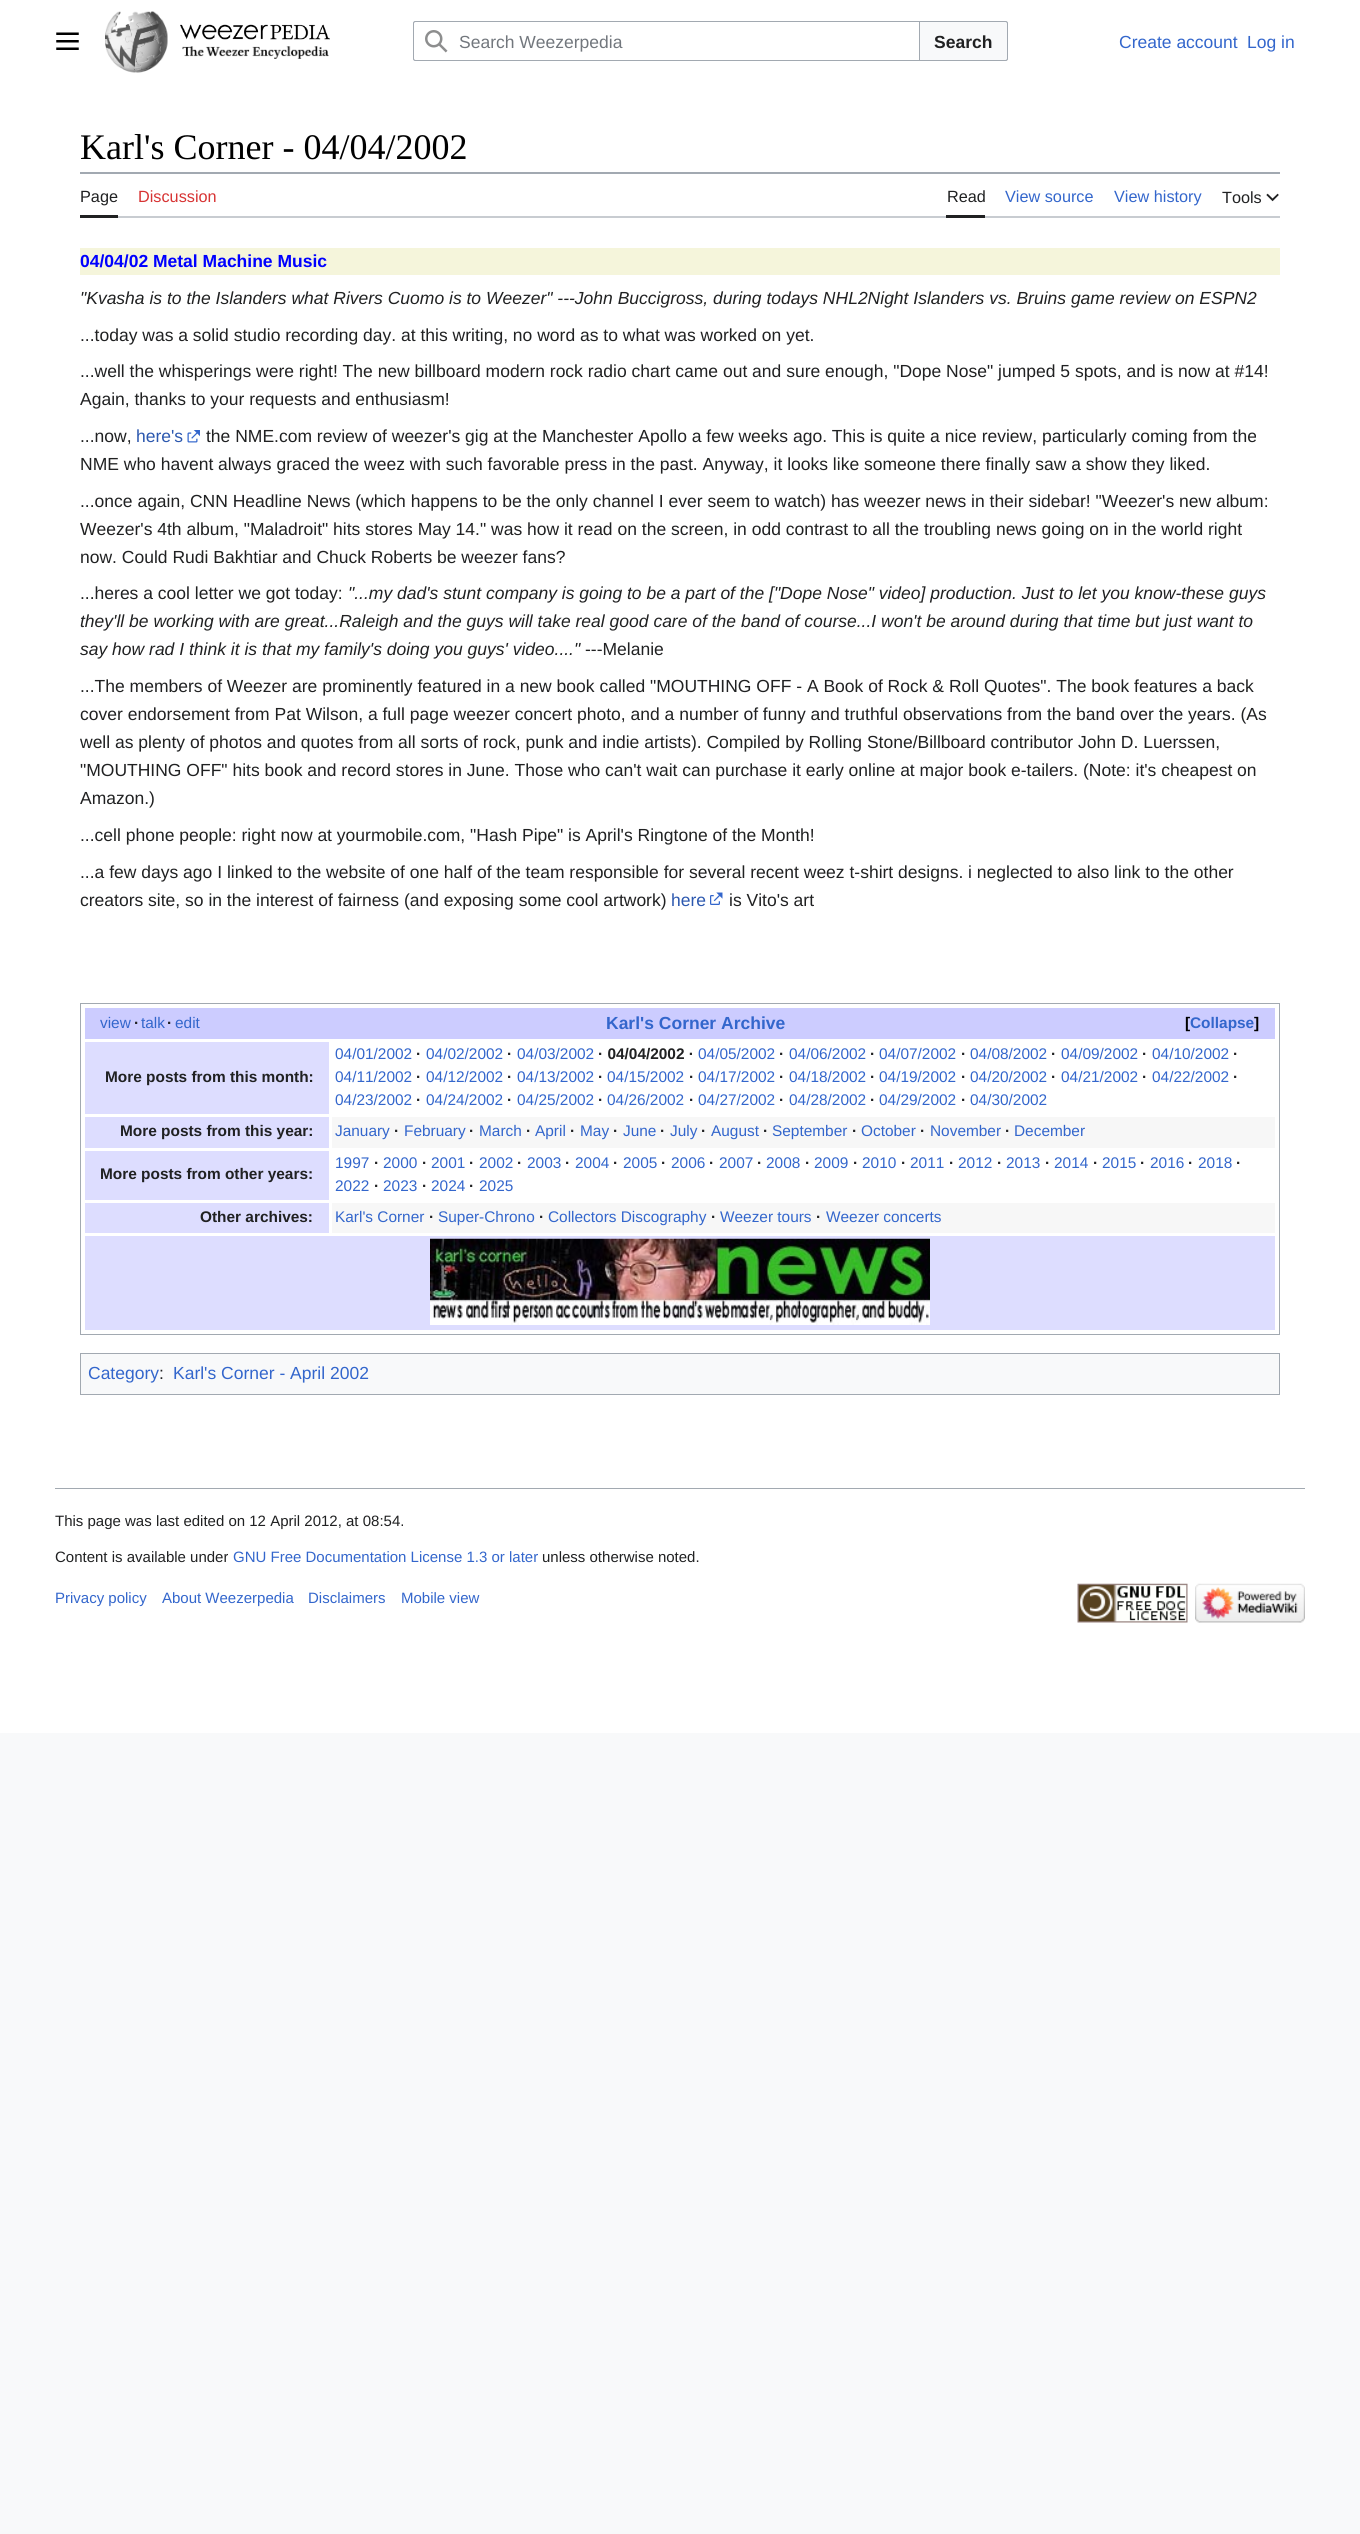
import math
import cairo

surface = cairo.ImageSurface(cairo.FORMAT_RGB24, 1360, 2534)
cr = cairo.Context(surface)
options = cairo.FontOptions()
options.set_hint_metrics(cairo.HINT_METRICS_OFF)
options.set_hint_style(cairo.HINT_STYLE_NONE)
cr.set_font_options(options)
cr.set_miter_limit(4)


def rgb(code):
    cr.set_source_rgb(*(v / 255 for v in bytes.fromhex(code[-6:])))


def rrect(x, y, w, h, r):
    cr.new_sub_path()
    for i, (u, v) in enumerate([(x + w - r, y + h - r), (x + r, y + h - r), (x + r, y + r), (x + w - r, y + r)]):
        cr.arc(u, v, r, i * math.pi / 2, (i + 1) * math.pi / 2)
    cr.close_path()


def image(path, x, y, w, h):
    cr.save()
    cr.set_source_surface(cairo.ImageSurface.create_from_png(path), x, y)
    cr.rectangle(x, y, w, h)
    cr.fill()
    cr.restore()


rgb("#f8f9fa")
cr.paint()
rgb("#ffffff")
cr.rectangle(0, 0, 1360, 1733)
cr.fill()
image("img/1.png", 56, 32, 23, 18)
image("img/2.png", 105, 11, 63, 62)
image("img/3.png", 180, 24, 150, 16)
image("img/4.png", 182, 46, 147, 13)
rrect(413.5, 21.5, 594, 39, 2)
rgb("#a2a9b1")
cr.set_line_width(1)
cr.stroke()
rgb("#f8f9fa")
cr.new_path()
cr.move_to(919.5, 21.5)
cr.line_to(1005.5, 21.5)
cr.curve_to(1006.5, 21.5, 1007.5, 22.5, 1007.5, 23.5)
cr.line_to(1007.5, 58.5)
cr.curve_to(1007.5, 59.5, 1006.5, 60.5, 1005.5, 60.5)
cr.line_to(919.5, 60.5)
cr.close_path()
cr.fill_preserve()
rgb("#a2a9b1")
cr.stroke()
rgb("#ffffff")
cr.new_path()
cr.move_to(415.5, 21.5)
cr.line_to(919.5, 21.5)
cr.line_to(919.5, 60.5)
cr.line_to(415.5, 60.5)
cr.curve_to(414.5, 60.5, 413.5, 59.5, 413.5, 58.5)
cr.line_to(413.5, 23.5)
cr.curve_to(413.5, 22.5, 414.5, 21.5, 415.5, 21.5)
cr.close_path()
cr.fill_preserve()
rgb("#a2a9b1")
cr.stroke()
image("img/5.png", 425, 30, 23, 23)
for x, y, w, h, color in [
    (80, 172, 1200, 2, "#a2a9b1"),
    (118, 216, 1162, 2, "#c8ccd1"),
    (80, 215, 38, 3, "#202122"),
    (946, 215, 39, 3, "#202122"),
]:
    rgb(color)
    cr.rectangle(x, y, w, h)
    cr.fill()
image("img/6.png", 1266, 193, 13, 9)
rgb("#f5f5db")
cr.rectangle(80, 248, 1200, 27)
cr.fill()
image("img/7.png", 187, 430, 13, 13)
image("img/8.png", 710, 892, 13, 13)
cr.rectangle(80.5, 1003.5, 1199, 331)
rgb("#a2a9b1")
cr.stroke()
for x, y, w, h, color in [
    (85, 1008, 1190, 31, "#ccccff"),
    (85, 1042, 244, 72, "#ddddff"),
    (85, 1117, 244, 31, "#ddddff"),
    (332, 1117, 943, 31, "#f7f7f7"),
    (85, 1151, 244, 49, "#ddddff"),
    (85, 1203, 244, 30, "#ddddff"),
    (332, 1203, 943, 30, "#f7f7f7"),
    (85, 1236, 1190, 94, "#ddddff"),
]:
    rgb(color)
    cr.rectangle(x, y, w, h)
    cr.fill()
image("img/9.png", 430, 1238, 500, 87)
rgb("#f8f9fa")
cr.rectangle(80.5, 1353.5, 1199, 41)
cr.fill_preserve()
rgb("#a2a9b1")
cr.stroke()
cr.rectangle(55, 1488, 1250, 1)
cr.fill()
image("img/10.png", 1077, 1583, 111, 40)
image("img/11.png", 1195, 1583, 110, 40)
cr.select_font_face("Liberation Sans")
cr.set_font_size(17.5)
rgb("#72777d")
cr.move_to(459, 48)
cr.show_text("Search Weezerpedia")
cr.select_font_face("Liberation Sans", cairo.FONT_SLANT_NORMAL, cairo.FONT_WEIGHT_BOLD)
rgb("#202122")
cr.move_to(934, 48)
cr.show_text("Search")
cr.select_font_face("Liberation Sans")
rgb("#3366cc")
cr.move_to(1119, 48)
cr.show_text("Create account")
cr.move_to(1247, 48)
cr.show_text("Log in")
cr.select_font_face("Liberation Serif")
cr.set_font_size(36)
rgb("#000000")
cr.move_to(80, 159)
cr.show_text("Karl's Corner - 04/04/2002")
cr.select_font_face("Liberation Sans")
cr.set_font_size(16.25)
rgb("#202122")
cr.move_to(80, 202)
cr.show_text("Page")
rgb("#d73333")
cr.move_to(138, 202)
cr.show_text("Discussion")
rgb("#202122")
cr.move_to(947, 202)
cr.show_text("Read")
rgb("#3366cc")
cr.move_to(1005, 202)
cr.show_text("View source")
cr.move_to(1114, 202)
cr.show_text("View history")
rgb("#202122")
cr.move_to(1222, 203)
cr.show_text("Tools")
cr.select_font_face("Liberation Sans", cairo.FONT_SLANT_NORMAL, cairo.FONT_WEIGHT_BOLD)
cr.set_font_size(17.5)
rgb("#0000ff")
cr.move_to(80, 267)
cr.show_text("04/04/02 Metal Machine Music")
cr.select_font_face("Liberation Sans", cairo.FONT_SLANT_ITALIC)
rgb("#202122")
cr.move_to(80, 304)
cr.show_text("\"Kvasha is to the Islanders what Rivers Cuomo is to Weezer\" ---John Buccigross, during todays NHL2Night Islanders vs. Bruins game review on ESPN2")
cr.select_font_face("Liberation Sans")
for x, y, s in [
    (80, 341, "...today was a solid studio recording day. at this writing, no word as to what was worked on yet."),
    (80, 377, "...well the whisperings were right! The new billboard modern rock radio chart came out and sure enough, \"Dope Nose\" jumped 5 spots, and is now at #14!"),
    (80, 405, "Again, thanks to your requests and enthusiasm!"),
    (80, 442, "...now,"),
]:
    cr.move_to(x, y)
    cr.show_text(s)
rgb("#2c58af")
cr.move_to(136, 442)
cr.show_text("here's")
rgb("#202122")
for x, y, s in [
    (206, 442, "the NME.com review of weezer's gig at the Manchester Apollo a few weeks ago. This is quite a nice review, particularly coming from the"),
    (80, 470, "NME who havent always graced the weez with such favorable press in the past. Anyway, it looks like someone there finally saw a show they liked."),
    (80, 507, "...once again, CNN Headline News (which happens to be the only channel I ever seem to watch) has weezer news in their sidebar! \"Weezer's new album:"),
    (80, 535, "Weezer's 4th album, \"Maladroit\" hits stores May 14.\" was how it read on the screen, in odd contrast to all the troubling news going on in the world right"),
    (80, 563, "now. Could Rudi Bakhtiar and Chuck Roberts be weezer fans?"),
    (80, 599, "...heres a cool letter we got today:"),
]:
    cr.move_to(x, y)
    cr.show_text(s)
cr.select_font_face("Liberation Sans", cairo.FONT_SLANT_ITALIC)
for x, y, s in [
    (348, 599, "\"...my dad's stunt company is going to be a part of the [\"Dope Nose\" video] production. Just to let you know-these guys"),
    (80, 627, "they'll be working with are great...Raleigh and the guys will take real good care of the band of course...I won't be around during that time but just want to"),
    (80, 655, "say how rad I think it is that my family's doing you guys' video....\""),
]:
    cr.move_to(x, y)
    cr.show_text(s)
cr.select_font_face("Liberation Sans")
for x, y, s in [
    (585, 655, "---Melanie"),
    (80, 692, "...The members of Weezer are prominently featured in a new book called \"MOUTHING OFF - A Book of Rock & Roll Quotes\". The book features a back"),
    (80, 720, "cover endorsement from Pat Wilson, a full page weezer concert photo, and a number of funny and truthful observations from the band over the years. (As"),
    (80, 748, "well as plenty of photos and quotes from all sorts of rock, punk and indie artists). Compiled by Rolling Stone/Billboard contributor John D. Luerssen,"),
    (80, 776, "\"MOUTHING OFF\" hits book and record stores in June. Those who can't wait can purchase it early online at major book e-tailers. (Note: it's cheapest on"),
    (80, 804, "Amazon.)"),
    (80, 841, "...cell phone people: right now at yourmobile.com, \"Hash Pipe\" is April's Ringtone of the Month!"),
    (80, 878, "...a few days ago I linked to the website of one half of the team responsible for several recent weez t-shirt designs. i neglected to also link to the other"),
    (80, 906, "creators site, so in the interest of fairness (and exposing some cool artwork)"),
]:
    cr.move_to(x, y)
    cr.show_text(s)
rgb("#2c58af")
cr.move_to(671, 906)
cr.show_text("here")
rgb("#202122")
cr.move_to(729, 906)
cr.show_text("is Vito's art")
cr.set_font_size(15.4)
rgb("#3366cc")
cr.move_to(100, 1028)
cr.show_text("view")
cr.select_font_face("Liberation Sans", cairo.FONT_SLANT_NORMAL, cairo.FONT_WEIGHT_BOLD)
rgb("#202122")
cr.move_to(134, 1028)
cr.show_text("·")
cr.select_font_face("Liberation Sans")
rgb("#3366cc")
cr.move_to(141, 1028)
cr.show_text("talk")
cr.select_font_face("Liberation Sans", cairo.FONT_SLANT_NORMAL, cairo.FONT_WEIGHT_BOLD)
rgb("#202122")
cr.move_to(167, 1028)
cr.show_text("·")
cr.select_font_face("Liberation Sans")
rgb("#3366cc")
cr.move_to(175, 1028)
cr.show_text("edit")
cr.select_font_face("Liberation Sans", cairo.FONT_SLANT_NORMAL, cairo.FONT_WEIGHT_BOLD)
cr.set_font_size(17.5)
cr.move_to(606, 1029)
cr.show_text("Karl's Corner Archive")
cr.set_font_size(15.4)
rgb("#000000")
cr.move_to(1185, 1028)
cr.show_text("[")
rgb("#3366cc")
cr.move_to(1190, 1028)
cr.show_text("Collapse")
rgb("#000000")
cr.move_to(1254, 1028)
cr.show_text("]")
rgb("#202122")
cr.move_to(105, 1082)
cr.show_text("More posts from this month:")
cr.select_font_face("Liberation Sans")
rgb("#3366cc")
cr.move_to(335, 1059)
cr.show_text("04/01/2002")
cr.select_font_face("Liberation Sans", cairo.FONT_SLANT_NORMAL, cairo.FONT_WEIGHT_BOLD)
rgb("#202122")
cr.move_to(416, 1059)
cr.show_text("·")
cr.select_font_face("Liberation Sans")
rgb("#3366cc")
cr.move_to(426, 1059)
cr.show_text("04/02/2002")
cr.select_font_face("Liberation Sans", cairo.FONT_SLANT_NORMAL, cairo.FONT_WEIGHT_BOLD)
rgb("#202122")
cr.move_to(507, 1059)
cr.show_text("·")
cr.select_font_face("Liberation Sans")
rgb("#3366cc")
cr.move_to(517, 1059)
cr.show_text("04/03/2002")
cr.select_font_face("Liberation Sans", cairo.FONT_SLANT_NORMAL, cairo.FONT_WEIGHT_BOLD)
rgb("#202122")
cr.move_to(598, 1059)
cr.show_text("· 04/04/2002 ·")
cr.select_font_face("Liberation Sans")
rgb("#3366cc")
cr.move_to(698, 1059)
cr.show_text("04/05/2002")
cr.select_font_face("Liberation Sans", cairo.FONT_SLANT_NORMAL, cairo.FONT_WEIGHT_BOLD)
rgb("#202122")
cr.move_to(779, 1059)
cr.show_text("·")
cr.select_font_face("Liberation Sans")
rgb("#3366cc")
cr.move_to(789, 1059)
cr.show_text("04/06/2002")
cr.select_font_face("Liberation Sans", cairo.FONT_SLANT_NORMAL, cairo.FONT_WEIGHT_BOLD)
rgb("#202122")
cr.move_to(870, 1059)
cr.show_text("·")
cr.select_font_face("Liberation Sans")
rgb("#3366cc")
cr.move_to(879, 1059)
cr.show_text("04/07/2002")
cr.select_font_face("Liberation Sans", cairo.FONT_SLANT_NORMAL, cairo.FONT_WEIGHT_BOLD)
rgb("#202122")
cr.move_to(961, 1059)
cr.show_text("·")
cr.select_font_face("Liberation Sans")
rgb("#3366cc")
cr.move_to(970, 1059)
cr.show_text("04/08/2002")
cr.select_font_face("Liberation Sans", cairo.FONT_SLANT_NORMAL, cairo.FONT_WEIGHT_BOLD)
rgb("#202122")
cr.move_to(1051, 1059)
cr.show_text("·")
cr.select_font_face("Liberation Sans")
rgb("#3366cc")
cr.move_to(1061, 1059)
cr.show_text("04/09/2002")
cr.select_font_face("Liberation Sans", cairo.FONT_SLANT_NORMAL, cairo.FONT_WEIGHT_BOLD)
rgb("#202122")
cr.move_to(1142, 1059)
cr.show_text("·")
cr.select_font_face("Liberation Sans")
rgb("#3366cc")
cr.move_to(1152, 1059)
cr.show_text("04/10/2002")
cr.select_font_face("Liberation Sans", cairo.FONT_SLANT_NORMAL, cairo.FONT_WEIGHT_BOLD)
rgb("#202122")
cr.move_to(1233, 1059)
cr.show_text("·")
cr.select_font_face("Liberation Sans")
rgb("#3366cc")
cr.move_to(335, 1082)
cr.show_text("04/11/2002")
cr.select_font_face("Liberation Sans", cairo.FONT_SLANT_NORMAL, cairo.FONT_WEIGHT_BOLD)
rgb("#202122")
cr.move_to(416, 1082)
cr.show_text("·")
cr.select_font_face("Liberation Sans")
rgb("#3366cc")
cr.move_to(426, 1082)
cr.show_text("04/12/2002")
cr.select_font_face("Liberation Sans", cairo.FONT_SLANT_NORMAL, cairo.FONT_WEIGHT_BOLD)
rgb("#202122")
cr.move_to(507, 1082)
cr.show_text("·")
cr.select_font_face("Liberation Sans")
rgb("#3366cc")
cr.move_to(517, 1082)
cr.show_text("04/13/2002")
cr.select_font_face("Liberation Sans", cairo.FONT_SLANT_NORMAL, cairo.FONT_WEIGHT_BOLD)
rgb("#202122")
cr.move_to(598, 1082)
cr.show_text("·")
cr.select_font_face("Liberation Sans")
rgb("#3366cc")
cr.move_to(607, 1082)
cr.show_text("04/15/2002")
cr.select_font_face("Liberation Sans", cairo.FONT_SLANT_NORMAL, cairo.FONT_WEIGHT_BOLD)
rgb("#202122")
cr.move_to(689, 1082)
cr.show_text("·")
cr.select_font_face("Liberation Sans")
rgb("#3366cc")
cr.move_to(698, 1082)
cr.show_text("04/17/2002")
cr.select_font_face("Liberation Sans", cairo.FONT_SLANT_NORMAL, cairo.FONT_WEIGHT_BOLD)
rgb("#202122")
cr.move_to(779, 1082)
cr.show_text("·")
cr.select_font_face("Liberation Sans")
rgb("#3366cc")
cr.move_to(789, 1082)
cr.show_text("04/18/2002")
cr.select_font_face("Liberation Sans", cairo.FONT_SLANT_NORMAL, cairo.FONT_WEIGHT_BOLD)
rgb("#202122")
cr.move_to(870, 1082)
cr.show_text("·")
cr.select_font_face("Liberation Sans")
rgb("#3366cc")
cr.move_to(879, 1082)
cr.show_text("04/19/2002")
cr.select_font_face("Liberation Sans", cairo.FONT_SLANT_NORMAL, cairo.FONT_WEIGHT_BOLD)
rgb("#202122")
cr.move_to(961, 1082)
cr.show_text("·")
cr.select_font_face("Liberation Sans")
rgb("#3366cc")
cr.move_to(970, 1082)
cr.show_text("04/20/2002")
cr.select_font_face("Liberation Sans", cairo.FONT_SLANT_NORMAL, cairo.FONT_WEIGHT_BOLD)
rgb("#202122")
cr.move_to(1051, 1082)
cr.show_text("·")
cr.select_font_face("Liberation Sans")
rgb("#3366cc")
cr.move_to(1061, 1082)
cr.show_text("04/21/2002")
cr.select_font_face("Liberation Sans", cairo.FONT_SLANT_NORMAL, cairo.FONT_WEIGHT_BOLD)
rgb("#202122")
cr.move_to(1142, 1082)
cr.show_text("·")
cr.select_font_face("Liberation Sans")
rgb("#3366cc")
cr.move_to(1152, 1082)
cr.show_text("04/22/2002")
cr.select_font_face("Liberation Sans", cairo.FONT_SLANT_NORMAL, cairo.FONT_WEIGHT_BOLD)
rgb("#202122")
cr.move_to(1233, 1082)
cr.show_text("·")
cr.select_font_face("Liberation Sans")
rgb("#3366cc")
cr.move_to(335, 1105)
cr.show_text("04/23/2002")
cr.select_font_face("Liberation Sans", cairo.FONT_SLANT_NORMAL, cairo.FONT_WEIGHT_BOLD)
rgb("#202122")
cr.move_to(416, 1105)
cr.show_text("·")
cr.select_font_face("Liberation Sans")
rgb("#3366cc")
cr.move_to(426, 1105)
cr.show_text("04/24/2002")
cr.select_font_face("Liberation Sans", cairo.FONT_SLANT_NORMAL, cairo.FONT_WEIGHT_BOLD)
rgb("#202122")
cr.move_to(507, 1105)
cr.show_text("·")
cr.select_font_face("Liberation Sans")
rgb("#3366cc")
cr.move_to(517, 1105)
cr.show_text("04/25/2002")
cr.select_font_face("Liberation Sans", cairo.FONT_SLANT_NORMAL, cairo.FONT_WEIGHT_BOLD)
rgb("#202122")
cr.move_to(598, 1105)
cr.show_text("·")
cr.select_font_face("Liberation Sans")
rgb("#3366cc")
cr.move_to(607, 1105)
cr.show_text("04/26/2002")
cr.select_font_face("Liberation Sans", cairo.FONT_SLANT_NORMAL, cairo.FONT_WEIGHT_BOLD)
rgb("#202122")
cr.move_to(689, 1105)
cr.show_text("·")
cr.select_font_face("Liberation Sans")
rgb("#3366cc")
cr.move_to(698, 1105)
cr.show_text("04/27/2002")
cr.select_font_face("Liberation Sans", cairo.FONT_SLANT_NORMAL, cairo.FONT_WEIGHT_BOLD)
rgb("#202122")
cr.move_to(779, 1105)
cr.show_text("·")
cr.select_font_face("Liberation Sans")
rgb("#3366cc")
cr.move_to(789, 1105)
cr.show_text("04/28/2002")
cr.select_font_face("Liberation Sans", cairo.FONT_SLANT_NORMAL, cairo.FONT_WEIGHT_BOLD)
rgb("#202122")
cr.move_to(870, 1105)
cr.show_text("·")
cr.select_font_face("Liberation Sans")
rgb("#3366cc")
cr.move_to(879, 1105)
cr.show_text("04/29/2002")
cr.select_font_face("Liberation Sans", cairo.FONT_SLANT_NORMAL, cairo.FONT_WEIGHT_BOLD)
rgb("#202122")
cr.move_to(961, 1105)
cr.show_text("·")
cr.select_font_face("Liberation Sans")
rgb("#3366cc")
cr.move_to(970, 1105)
cr.show_text("04/30/2002")
cr.select_font_face("Liberation Sans", cairo.FONT_SLANT_NORMAL, cairo.FONT_WEIGHT_BOLD)
rgb("#202122")
cr.move_to(120, 1136)
cr.show_text("More posts from this year:")
cr.select_font_face("Liberation Sans")
rgb("#3366cc")
cr.move_to(335, 1136)
cr.show_text("January")
cr.select_font_face("Liberation Sans", cairo.FONT_SLANT_NORMAL, cairo.FONT_WEIGHT_BOLD)
rgb("#202122")
cr.move_to(394, 1136)
cr.show_text("·")
cr.select_font_face("Liberation Sans")
rgb("#3366cc")
cr.move_to(404, 1136)
cr.show_text("February")
cr.select_font_face("Liberation Sans", cairo.FONT_SLANT_NORMAL, cairo.FONT_WEIGHT_BOLD)
rgb("#202122")
cr.move_to(469, 1136)
cr.show_text("·")
cr.select_font_face("Liberation Sans")
rgb("#3366cc")
cr.move_to(479, 1136)
cr.show_text("March")
cr.select_font_face("Liberation Sans", cairo.FONT_SLANT_NORMAL, cairo.FONT_WEIGHT_BOLD)
rgb("#202122")
cr.move_to(526, 1136)
cr.show_text("·")
cr.select_font_face("Liberation Sans")
rgb("#3366cc")
cr.move_to(535, 1136)
cr.show_text("April")
cr.select_font_face("Liberation Sans", cairo.FONT_SLANT_NORMAL, cairo.FONT_WEIGHT_BOLD)
rgb("#202122")
cr.move_to(570, 1136)
cr.show_text("·")
cr.select_font_face("Liberation Sans")
rgb("#3366cc")
cr.move_to(580, 1136)
cr.show_text("May")
cr.select_font_face("Liberation Sans", cairo.FONT_SLANT_NORMAL, cairo.FONT_WEIGHT_BOLD)
rgb("#202122")
cr.move_to(613, 1136)
cr.show_text("·")
cr.select_font_face("Liberation Sans")
rgb("#3366cc")
cr.move_to(623, 1136)
cr.show_text("June")
cr.select_font_face("Liberation Sans", cairo.FONT_SLANT_NORMAL, cairo.FONT_WEIGHT_BOLD)
rgb("#202122")
cr.move_to(660, 1136)
cr.show_text("·")
cr.select_font_face("Liberation Sans")
rgb("#3366cc")
cr.move_to(670, 1136)
cr.show_text("July")
cr.select_font_face("Liberation Sans", cairo.FONT_SLANT_NORMAL, cairo.FONT_WEIGHT_BOLD)
rgb("#202122")
cr.move_to(701, 1136)
cr.show_text("·")
cr.select_font_face("Liberation Sans")
rgb("#3366cc")
cr.move_to(711, 1136)
cr.show_text("August")
cr.select_font_face("Liberation Sans", cairo.FONT_SLANT_NORMAL, cairo.FONT_WEIGHT_BOLD)
rgb("#202122")
cr.move_to(763, 1136)
cr.show_text("·")
cr.select_font_face("Liberation Sans")
rgb("#3366cc")
cr.move_to(772, 1136)
cr.show_text("September")
cr.select_font_face("Liberation Sans", cairo.FONT_SLANT_NORMAL, cairo.FONT_WEIGHT_BOLD)
rgb("#202122")
cr.move_to(852, 1136)
cr.show_text("·")
cr.select_font_face("Liberation Sans")
rgb("#3366cc")
cr.move_to(861, 1136)
cr.show_text("October")
cr.select_font_face("Liberation Sans", cairo.FONT_SLANT_NORMAL, cairo.FONT_WEIGHT_BOLD)
rgb("#202122")
cr.move_to(920, 1136)
cr.show_text("·")
cr.select_font_face("Liberation Sans")
rgb("#3366cc")
cr.move_to(930, 1136)
cr.show_text("November")
cr.select_font_face("Liberation Sans", cairo.FONT_SLANT_NORMAL, cairo.FONT_WEIGHT_BOLD)
rgb("#202122")
cr.move_to(1005, 1136)
cr.show_text("·")
cr.select_font_face("Liberation Sans")
rgb("#3366cc")
cr.move_to(1014, 1136)
cr.show_text("December")
cr.select_font_face("Liberation Sans", cairo.FONT_SLANT_NORMAL, cairo.FONT_WEIGHT_BOLD)
rgb("#202122")
cr.move_to(100, 1179)
cr.show_text("More posts from other years:")
cr.select_font_face("Liberation Sans")
rgb("#3366cc")
cr.move_to(335, 1168)
cr.show_text("1997")
cr.select_font_face("Liberation Sans", cairo.FONT_SLANT_NORMAL, cairo.FONT_WEIGHT_BOLD)
rgb("#202122")
cr.move_to(374, 1168)
cr.show_text("·")
cr.select_font_face("Liberation Sans")
rgb("#3366cc")
cr.move_to(383, 1168)
cr.show_text("2000")
cr.select_font_face("Liberation Sans", cairo.FONT_SLANT_NORMAL, cairo.FONT_WEIGHT_BOLD)
rgb("#202122")
cr.move_to(422, 1168)
cr.show_text("·")
cr.select_font_face("Liberation Sans")
rgb("#3366cc")
cr.move_to(431, 1168)
cr.show_text("2001")
cr.select_font_face("Liberation Sans", cairo.FONT_SLANT_NORMAL, cairo.FONT_WEIGHT_BOLD)
rgb("#202122")
cr.move_to(469, 1168)
cr.show_text("·")
cr.select_font_face("Liberation Sans")
rgb("#3366cc")
cr.move_to(479, 1168)
cr.show_text("2002")
cr.select_font_face("Liberation Sans", cairo.FONT_SLANT_NORMAL, cairo.FONT_WEIGHT_BOLD)
rgb("#202122")
cr.move_to(517, 1168)
cr.show_text("·")
cr.select_font_face("Liberation Sans")
rgb("#3366cc")
cr.move_to(527, 1168)
cr.show_text("2003")
cr.select_font_face("Liberation Sans", cairo.FONT_SLANT_NORMAL, cairo.FONT_WEIGHT_BOLD)
rgb("#202122")
cr.move_to(565, 1168)
cr.show_text("·")
cr.select_font_face("Liberation Sans")
rgb("#3366cc")
cr.move_to(575, 1168)
cr.show_text("2004")
cr.select_font_face("Liberation Sans", cairo.FONT_SLANT_NORMAL, cairo.FONT_WEIGHT_BOLD)
rgb("#202122")
cr.move_to(613, 1168)
cr.show_text("·")
cr.select_font_face("Liberation Sans")
rgb("#3366cc")
cr.move_to(623, 1168)
cr.show_text("2005")
cr.select_font_face("Liberation Sans", cairo.FONT_SLANT_NORMAL, cairo.FONT_WEIGHT_BOLD)
rgb("#202122")
cr.move_to(661, 1168)
cr.show_text("·")
cr.select_font_face("Liberation Sans")
rgb("#3366cc")
cr.move_to(671, 1168)
cr.show_text("2006")
cr.select_font_face("Liberation Sans", cairo.FONT_SLANT_NORMAL, cairo.FONT_WEIGHT_BOLD)
rgb("#202122")
cr.move_to(709, 1168)
cr.show_text("·")
cr.select_font_face("Liberation Sans")
rgb("#3366cc")
cr.move_to(719, 1168)
cr.show_text("2007")
cr.select_font_face("Liberation Sans", cairo.FONT_SLANT_NORMAL, cairo.FONT_WEIGHT_BOLD)
rgb("#202122")
cr.move_to(757, 1168)
cr.show_text("·")
cr.select_font_face("Liberation Sans")
rgb("#3366cc")
cr.move_to(766, 1168)
cr.show_text("2008")
cr.select_font_face("Liberation Sans", cairo.FONT_SLANT_NORMAL, cairo.FONT_WEIGHT_BOLD)
rgb("#202122")
cr.move_to(805, 1168)
cr.show_text("·")
cr.select_font_face("Liberation Sans")
rgb("#3366cc")
cr.move_to(814, 1168)
cr.show_text("2009")
cr.select_font_face("Liberation Sans", cairo.FONT_SLANT_NORMAL, cairo.FONT_WEIGHT_BOLD)
rgb("#202122")
cr.move_to(853, 1168)
cr.show_text("·")
cr.select_font_face("Liberation Sans")
rgb("#3366cc")
cr.move_to(862, 1168)
cr.show_text("2010")
cr.select_font_face("Liberation Sans", cairo.FONT_SLANT_NORMAL, cairo.FONT_WEIGHT_BOLD)
rgb("#202122")
cr.move_to(901, 1168)
cr.show_text("·")
cr.select_font_face("Liberation Sans")
rgb("#3366cc")
cr.move_to(910, 1168)
cr.show_text("2011")
cr.select_font_face("Liberation Sans", cairo.FONT_SLANT_NORMAL, cairo.FONT_WEIGHT_BOLD)
rgb("#202122")
cr.move_to(949, 1168)
cr.show_text("·")
cr.select_font_face("Liberation Sans")
rgb("#3366cc")
cr.move_to(958, 1168)
cr.show_text("2012")
cr.select_font_face("Liberation Sans", cairo.FONT_SLANT_NORMAL, cairo.FONT_WEIGHT_BOLD)
rgb("#202122")
cr.move_to(997, 1168)
cr.show_text("·")
cr.select_font_face("Liberation Sans")
rgb("#3366cc")
cr.move_to(1006, 1168)
cr.show_text("2013")
cr.select_font_face("Liberation Sans", cairo.FONT_SLANT_NORMAL, cairo.FONT_WEIGHT_BOLD)
rgb("#202122")
cr.move_to(1045, 1168)
cr.show_text("·")
cr.select_font_face("Liberation Sans")
rgb("#3366cc")
cr.move_to(1054, 1168)
cr.show_text("2014")
cr.select_font_face("Liberation Sans", cairo.FONT_SLANT_NORMAL, cairo.FONT_WEIGHT_BOLD)
rgb("#202122")
cr.move_to(1093, 1168)
cr.show_text("·")
cr.select_font_face("Liberation Sans")
rgb("#3366cc")
cr.move_to(1102, 1168)
cr.show_text("2015")
cr.select_font_face("Liberation Sans", cairo.FONT_SLANT_NORMAL, cairo.FONT_WEIGHT_BOLD)
rgb("#202122")
cr.move_to(1140, 1168)
cr.show_text("·")
cr.select_font_face("Liberation Sans")
rgb("#3366cc")
cr.move_to(1150, 1168)
cr.show_text("2016")
cr.select_font_face("Liberation Sans", cairo.FONT_SLANT_NORMAL, cairo.FONT_WEIGHT_BOLD)
rgb("#202122")
cr.move_to(1188, 1168)
cr.show_text("·")
cr.select_font_face("Liberation Sans")
rgb("#3366cc")
cr.move_to(1198, 1168)
cr.show_text("2018")
cr.select_font_face("Liberation Sans", cairo.FONT_SLANT_NORMAL, cairo.FONT_WEIGHT_BOLD)
rgb("#202122")
cr.move_to(1236, 1168)
cr.show_text("·")
cr.select_font_face("Liberation Sans")
rgb("#3366cc")
cr.move_to(335, 1191)
cr.show_text("2022")
cr.select_font_face("Liberation Sans", cairo.FONT_SLANT_NORMAL, cairo.FONT_WEIGHT_BOLD)
rgb("#202122")
cr.move_to(374, 1191)
cr.show_text("·")
cr.select_font_face("Liberation Sans")
rgb("#3366cc")
cr.move_to(383, 1191)
cr.show_text("2023")
cr.select_font_face("Liberation Sans", cairo.FONT_SLANT_NORMAL, cairo.FONT_WEIGHT_BOLD)
rgb("#202122")
cr.move_to(422, 1191)
cr.show_text("·")
cr.select_font_face("Liberation Sans")
rgb("#3366cc")
cr.move_to(431, 1191)
cr.show_text("2024")
cr.select_font_face("Liberation Sans", cairo.FONT_SLANT_NORMAL, cairo.FONT_WEIGHT_BOLD)
rgb("#202122")
cr.move_to(469, 1191)
cr.show_text("·")
cr.select_font_face("Liberation Sans")
rgb("#3366cc")
cr.move_to(479, 1191)
cr.show_text("2025")
cr.select_font_face("Liberation Sans", cairo.FONT_SLANT_NORMAL, cairo.FONT_WEIGHT_BOLD)
rgb("#202122")
cr.move_to(200, 1222)
cr.show_text("Other archives:")
cr.select_font_face("Liberation Sans")
rgb("#3366cc")
cr.move_to(335, 1222)
cr.show_text("Karl's Corner")
cr.select_font_face("Liberation Sans", cairo.FONT_SLANT_NORMAL, cairo.FONT_WEIGHT_BOLD)
rgb("#202122")
cr.move_to(429, 1222)
cr.show_text("·")
cr.select_font_face("Liberation Sans")
rgb("#3366cc")
cr.move_to(438, 1222)
cr.show_text("Super-Chrono")
cr.select_font_face("Liberation Sans", cairo.FONT_SLANT_NORMAL, cairo.FONT_WEIGHT_BOLD)
rgb("#202122")
cr.move_to(539, 1222)
cr.show_text("·")
cr.select_font_face("Liberation Sans")
rgb("#3366cc")
cr.move_to(548, 1222)
cr.show_text("Collectors Discography")
cr.select_font_face("Liberation Sans", cairo.FONT_SLANT_NORMAL, cairo.FONT_WEIGHT_BOLD)
rgb("#202122")
cr.move_to(711, 1222)
cr.show_text("·")
cr.select_font_face("Liberation Sans")
rgb("#3366cc")
cr.move_to(720, 1222)
cr.show_text("Weezer tours")
cr.select_font_face("Liberation Sans", cairo.FONT_SLANT_NORMAL, cairo.FONT_WEIGHT_BOLD)
rgb("#202122")
cr.move_to(816, 1222)
cr.show_text("·")
cr.select_font_face("Liberation Sans")
rgb("#3366cc")
cr.move_to(826, 1222)
cr.show_text("Weezer concerts")
cr.set_font_size(17.5)
cr.move_to(88, 1379)
cr.show_text("Category")
rgb("#202122")
cr.move_to(159, 1379)
cr.show_text(":")
rgb("#3366cc")
cr.move_to(173, 1379)
cr.show_text("Karl's Corner - April 2002")
cr.set_font_size(15)
rgb("#202122")
cr.move_to(55, 1526)
cr.show_text("This page was last edited on 12 April 2012, at 08:54.")
cr.move_to(55, 1562)
cr.show_text("Content is available under")
rgb("#3366cc")
cr.move_to(233, 1562)
cr.show_text("GNU Free Documentation License 1.3 or later")
rgb("#202122")
cr.move_to(542, 1562)
cr.show_text("unless otherwise noted.")
rgb("#3366cc")
for x, y, s in [
    (55, 1603, "Privacy policy"),
    (162, 1603, "About Weezerpedia"),
    (308, 1603, "Disclaimers"),
    (401, 1603, "Mobile view"),
]:
    cr.move_to(x, y)
    cr.show_text(s)
surface.write_to_png("page.png")
